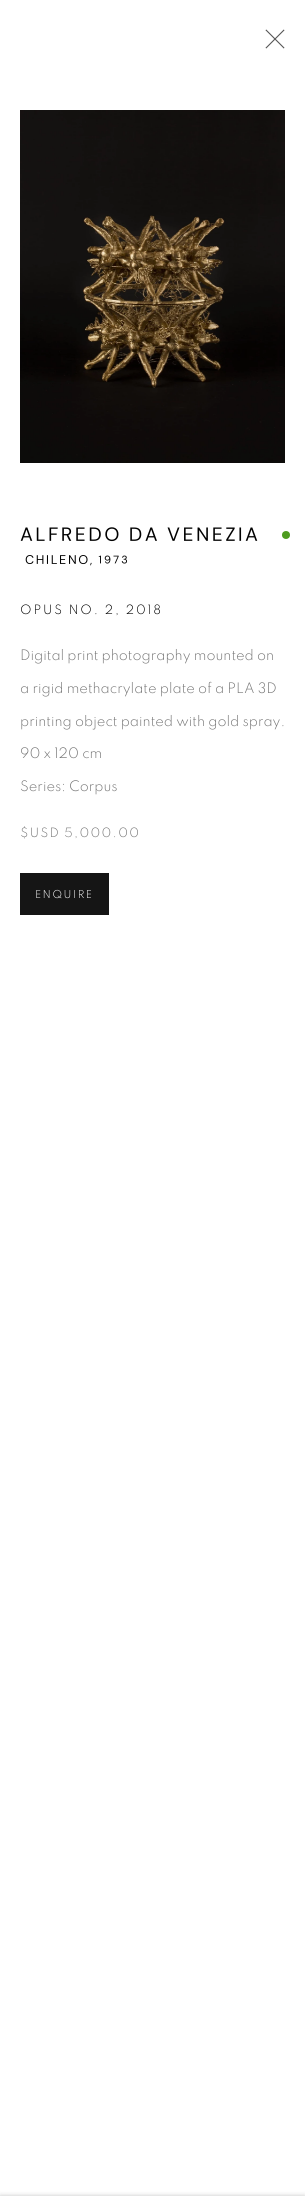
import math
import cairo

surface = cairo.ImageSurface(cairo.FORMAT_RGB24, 305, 2196)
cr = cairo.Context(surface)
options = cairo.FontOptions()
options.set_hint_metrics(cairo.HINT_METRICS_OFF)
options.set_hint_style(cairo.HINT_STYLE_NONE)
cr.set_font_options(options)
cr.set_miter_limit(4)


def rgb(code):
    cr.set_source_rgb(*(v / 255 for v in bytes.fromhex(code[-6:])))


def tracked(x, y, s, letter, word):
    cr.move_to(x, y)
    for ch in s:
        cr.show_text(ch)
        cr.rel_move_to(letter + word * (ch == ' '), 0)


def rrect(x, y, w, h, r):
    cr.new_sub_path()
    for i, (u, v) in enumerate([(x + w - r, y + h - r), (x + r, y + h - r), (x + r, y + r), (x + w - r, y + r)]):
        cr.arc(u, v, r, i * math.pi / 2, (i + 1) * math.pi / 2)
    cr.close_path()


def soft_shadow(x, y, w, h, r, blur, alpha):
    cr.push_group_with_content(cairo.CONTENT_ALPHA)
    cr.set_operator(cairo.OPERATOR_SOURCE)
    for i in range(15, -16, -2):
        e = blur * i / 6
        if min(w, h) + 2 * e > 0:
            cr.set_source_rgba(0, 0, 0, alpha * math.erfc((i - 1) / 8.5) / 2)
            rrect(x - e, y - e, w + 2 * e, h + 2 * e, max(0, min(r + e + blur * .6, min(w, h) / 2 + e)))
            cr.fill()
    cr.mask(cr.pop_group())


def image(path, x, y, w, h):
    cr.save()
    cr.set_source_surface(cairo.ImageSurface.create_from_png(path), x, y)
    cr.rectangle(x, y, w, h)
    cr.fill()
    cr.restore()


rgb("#ffffff")
cr.paint()
image("img/1.png", 265, 29, 20, 20)
image("img/2.png", 20, 110, 265, 353)
rgb("#4e9c1f")
cr.arc(286, 535, 4, 0, 2 * math.pi)
cr.fill()
rgb("#151515")
cr.rectangle(20, 873, 89, 42)
cr.fill()
rgb("#000000")
soft_shadow(0, 2196, 305, 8, 0, 2.5, 0.23)
cr.select_font_face("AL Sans")
cr.set_font_size(19.5)
rgb("#010101")
tracked(20, 541, "ALFREDO DA VENEZIA", 2.8, 0)
cr.set_font_size(12.75)
tracked(25, 564, "CHILENO, 1973", 1.9, 0)
cr.select_font_face("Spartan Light")
cr.set_font_size(13.25)
tracked(20, 614, "OPUS NO. 2, 2018", 1.9, 0)
cr.set_font_size(14.9)
rgb("#757575")
for x, y, s in [
    (20, 660, "Digital print photography mounted on"),
    (20, 693, "a rigid methacrylate plate of a PLA 3D"),
    (20, 726, "printing object painted with gold spray."),
    (20, 758, "90 x 120 cm"),
    (20, 791, "Series: Corpus"),
]:
    cr.move_to(x, y)
    cr.show_text(s)
cr.set_font_size(13.25)
tracked(20, 837, "$USD 5,000.00", 1.3, 0)
cr.set_font_size(11.25)
rgb("#ffffff")
tracked(35, 898, "ENQUIRE", 1.5, 0)
surface.write_to_png("page.png")
